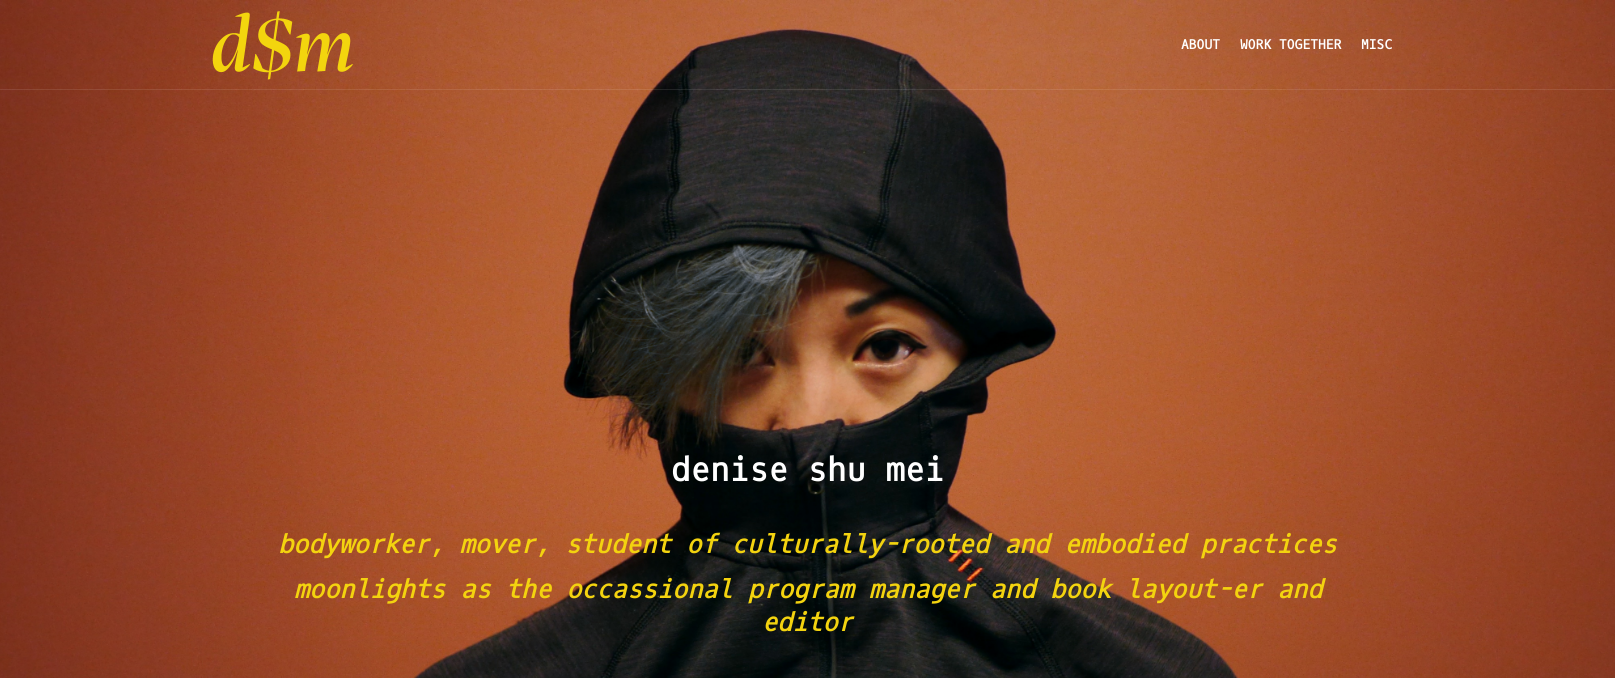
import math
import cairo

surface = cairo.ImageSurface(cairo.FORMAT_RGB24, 1615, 678)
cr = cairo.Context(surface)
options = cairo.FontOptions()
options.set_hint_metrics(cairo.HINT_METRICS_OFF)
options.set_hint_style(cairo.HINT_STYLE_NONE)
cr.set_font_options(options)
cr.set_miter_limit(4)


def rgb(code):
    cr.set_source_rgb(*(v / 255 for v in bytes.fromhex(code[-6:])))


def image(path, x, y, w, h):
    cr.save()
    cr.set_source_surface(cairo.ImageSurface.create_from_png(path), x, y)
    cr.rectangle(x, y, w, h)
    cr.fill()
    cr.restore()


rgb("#ffffff")
cr.paint()
image("img/2.png", 0, 0, 1615, 678)
cr.set_source_rgba(1, 1, 1, 0.1)
cr.rectangle(0, 89, 1615, 1)
cr.fill()
image("img/1.png", 212, 11, 141, 69)
cr.select_font_face("Oxygen Mono", cairo.FONT_SLANT_NORMAL, cairo.FONT_WEIGHT_BOLD)
cr.set_font_size(13)
rgb("#ffffff")
for x, y, s in [
    (1181, 49, "ABOUT"),
    (1240, 49, "WORK TOGETHER"),
    (1361, 49, "MISC"),
]:
    cr.move_to(x, y)
    cr.show_text(s)
cr.set_font_size(32.5)
cr.move_to(671, 481)
cr.show_text("denise shu mei")
cr.select_font_face("Oxygen Mono", cairo.FONT_SLANT_ITALIC, cairo.FONT_WEIGHT_BOLD)
cr.set_font_size(25.2)
rgb("#f3d30f")
for x, y, s in [
    (278, 553, "bodyworker, mover, student of culturally-rooted and embodied practices"),
    (294, 598, "moonlights as the occassional program manager and book layout-er and"),
    (762, 631, "editor"),
]:
    cr.move_to(x, y)
    cr.show_text(s)
surface.write_to_png("page.png")
